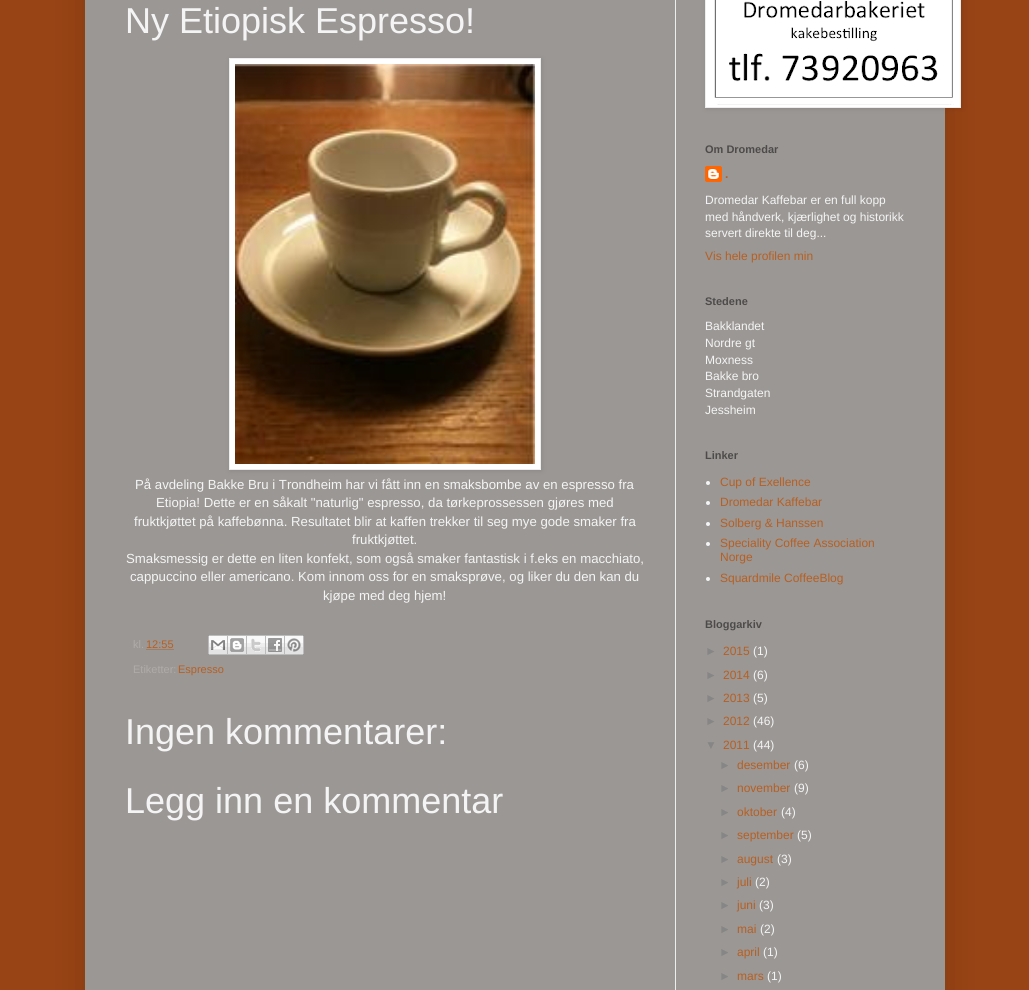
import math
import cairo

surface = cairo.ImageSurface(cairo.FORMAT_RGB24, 1029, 990)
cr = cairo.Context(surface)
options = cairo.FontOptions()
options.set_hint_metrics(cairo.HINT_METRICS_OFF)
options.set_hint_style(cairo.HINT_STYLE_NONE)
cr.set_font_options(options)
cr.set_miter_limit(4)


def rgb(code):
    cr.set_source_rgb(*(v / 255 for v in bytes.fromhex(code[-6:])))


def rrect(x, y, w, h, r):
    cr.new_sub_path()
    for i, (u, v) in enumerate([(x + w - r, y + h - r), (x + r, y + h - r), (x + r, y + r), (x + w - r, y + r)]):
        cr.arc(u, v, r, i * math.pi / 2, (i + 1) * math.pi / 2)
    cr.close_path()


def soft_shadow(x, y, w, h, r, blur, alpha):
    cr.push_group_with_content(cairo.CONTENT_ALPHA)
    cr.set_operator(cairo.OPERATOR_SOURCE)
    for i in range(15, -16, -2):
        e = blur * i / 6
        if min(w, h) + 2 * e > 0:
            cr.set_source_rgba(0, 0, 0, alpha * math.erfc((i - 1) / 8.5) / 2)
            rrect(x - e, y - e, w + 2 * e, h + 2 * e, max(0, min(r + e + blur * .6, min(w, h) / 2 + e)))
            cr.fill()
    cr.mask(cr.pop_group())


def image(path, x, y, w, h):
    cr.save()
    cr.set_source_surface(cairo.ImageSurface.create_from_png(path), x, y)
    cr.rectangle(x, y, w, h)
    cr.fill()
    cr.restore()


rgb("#994415")
cr.paint()
rgb("#000000")
soft_shadow(85, -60, 860, 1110, 0, 20, 0.15)
rgb("#9b9795")
cr.rectangle(85, 0, 860, 990)
cr.fill()
rgb("#ededed")
cr.rectangle(675, 0, 1, 990)
cr.fill()
rgb("#000000")
soft_shadow(230, 59, 312, 412, 0, 2.5, 0.1)
rgb("#ffffff")
cr.rectangle(229.5, 58.5, 311, 411)
cr.fill_preserve()
rgb("#ededed")
cr.set_line_width(1)
cr.stroke()
image("img/1.png", 235, 64, 300, 400)
cr.new_path()
cr.move_to(146.5, 649.5)
cr.line_to(173.5, 649.5)
rgb("#b75f21")
cr.set_dash([1, 1])
cr.stroke()
image("img/2.png", 208, 635, 20, 20)
image("img/3.png", 228, 635, 19, 20)
image("img/4.png", 247, 635, 19, 20)
image("img/5.png", 266, 635, 19, 20)
image("img/6.png", 285, 635, 19, 20)
rgb("#000000")
soft_shadow(706, -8, 256, 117, 0, 2.5, 0.1)
rgb("#ffffff")
cr.rectangle(705.5, -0.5, 255, 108)
cr.fill_preserve()
rgb("#ededed")
cr.set_dash([])
cr.stroke()
image("img/7.png", 714, 0, 240, 105)
image("img/8.png", 705, 166, 17, 16)
rgb("#f4f4f4")
cr.arc(708, 483, 2, 0, 2 * math.pi)
cr.fill()
cr.arc(708, 503, 2, 0, 2 * math.pi)
cr.fill()
cr.arc(708, 524, 2, 0, 2 * math.pi)
cr.fill()
cr.arc(708, 544, 2, 0, 2 * math.pi)
cr.fill()
cr.arc(708, 579, 2, 0, 2 * math.pi)
cr.fill()
cr.select_font_face("Liberation Sans")
cr.set_font_size(36)
cr.move_to(125, 33)
cr.show_text("Ny Etiopisk Espresso!")
cr.set_font_size(13.2)
for x, y, s in [
    (135, 489, "På avdeling Bakke Bru i Trondheim har vi fått inn en smaksbombe av en espresso fra"),
    (156, 507, "Etiopia! Dette er en såkalt \"naturlig\" espresso, da tørkeprossessen gjøres med"),
    (134, 526, "fruktkjøttet på kaffebønna. Resultatet blir at kaffen trekker til seg mye gode smaker fra"),
    (352, 544, "fruktkjøttet."),
    (126, 563, "Smaksmessig er dette en liten konfekt, som også smaker fantastisk i f.eks en macchiato,"),
    (130, 581, "cappuccino eller americano. Kom innom oss for en smaksprøve, og liker du den kan du"),
    (323, 600, "kjøpe med deg hjem!"),
]:
    cr.move_to(x, y)
    cr.show_text(s)
cr.set_font_size(11)
rgb("#aeaba8")
cr.move_to(133, 648)
cr.show_text("kl.")
rgb("#b75f21")
cr.move_to(146, 648)
cr.show_text("12:55")
rgb("#aeaba8")
cr.move_to(133, 673)
cr.show_text("Etiketter:")
rgb("#b75f21")
cr.move_to(178, 673)
cr.show_text("Espresso")
cr.set_font_size(36)
rgb("#f4f4f4")
cr.move_to(125, 744)
cr.show_text("Ingen kommentarer:")
cr.move_to(125, 813)
cr.show_text("Legg inn en kommentar")
cr.select_font_face("Liberation Sans", cairo.FONT_SLANT_NORMAL, cairo.FONT_WEIGHT_BOLD)
cr.set_font_size(11)
rgb("#4d4b4a")
cr.move_to(705, 153)
cr.show_text("Om Dromedar")
cr.set_font_size(12)
rgb("#b75f21")
cr.move_to(725, 178)
cr.show_text(".")
cr.select_font_face("Liberation Sans")
rgb("#f4f4f4")
for x, y, s in [
    (705, 204, "Dromedar Kaffebar er en full kopp"),
    (705, 221, "med håndverk, kjærlighet og historikk"),
    (705, 237, "servert direkte til deg..."),
]:
    cr.move_to(x, y)
    cr.show_text(s)
rgb("#b75f21")
cr.move_to(705, 260)
cr.show_text("Vis hele profilen min")
cr.select_font_face("Liberation Sans", cairo.FONT_SLANT_NORMAL, cairo.FONT_WEIGHT_BOLD)
cr.set_font_size(11)
rgb("#4d4b4a")
cr.move_to(705, 305)
cr.show_text("Stedene")
cr.select_font_face("Liberation Sans")
cr.set_font_size(12)
rgb("#f4f4f4")
for x, y, s in [
    (705, 330, "Bakklandet"),
    (705, 347, "Nordre gt"),
    (705, 364, "Moxness"),
    (705, 380, "Bakke bro"),
    (705, 397, "Strandgaten"),
    (705, 414, "Jessheim"),
]:
    cr.move_to(x, y)
    cr.show_text(s)
cr.select_font_face("Liberation Sans", cairo.FONT_SLANT_NORMAL, cairo.FONT_WEIGHT_BOLD)
cr.set_font_size(11)
rgb("#4d4b4a")
cr.move_to(705, 459)
cr.show_text("Linker")
cr.select_font_face("Liberation Sans")
cr.set_font_size(12)
rgb("#b75f21")
for x, y, s in [
    (720, 486, "Cup of Exellence"),
    (720, 506, "Dromedar Kaffebar"),
    (720, 527, "Solberg & Hanssen"),
    (720, 547, "Speciality Coffee Association"),
    (720, 561, "Norge"),
    (720, 582, "Squardmile CoffeeBlog"),
]:
    cr.move_to(x, y)
    cr.show_text(s)
cr.select_font_face("Liberation Sans", cairo.FONT_SLANT_NORMAL, cairo.FONT_WEIGHT_BOLD)
cr.set_font_size(11)
rgb("#4d4b4a")
cr.move_to(705, 628)
cr.show_text("Bloggarkiv")
cr.select_font_face("Liberation Sans")
cr.set_font_size(12)
rgb("#868686")
cr.move_to(705, 655)
cr.show_text("►")
rgb("#b75f21")
cr.move_to(723, 655)
cr.show_text("2015")
rgb("#f4f4f4")
cr.move_to(753, 655)
cr.show_text("(1)")
rgb("#868686")
cr.move_to(705, 679)
cr.show_text("►")
rgb("#b75f21")
cr.move_to(723, 679)
cr.show_text("2014")
rgb("#f4f4f4")
cr.move_to(753, 679)
cr.show_text("(6)")
rgb("#868686")
cr.move_to(705, 702)
cr.show_text("►")
rgb("#b75f21")
cr.move_to(723, 702)
cr.show_text("2013")
rgb("#f4f4f4")
cr.move_to(753, 702)
cr.show_text("(5)")
rgb("#868686")
cr.move_to(705, 725)
cr.show_text("►")
rgb("#b75f21")
cr.move_to(723, 725)
cr.show_text("2012")
rgb("#f4f4f4")
cr.move_to(753, 725)
cr.show_text("(46)")
rgb("#868686")
cr.move_to(705, 749)
cr.show_text("▼")
rgb("#b75f21")
cr.move_to(723, 749)
cr.show_text("2011")
rgb("#f4f4f4")
cr.move_to(753, 749)
cr.show_text("(44)")
rgb("#868686")
cr.move_to(719, 769)
cr.show_text("►")
rgb("#b75f21")
cr.move_to(737, 769)
cr.show_text("desember")
rgb("#f4f4f4")
cr.move_to(794, 769)
cr.show_text("(6)")
rgb("#868686")
cr.move_to(719, 792)
cr.show_text("►")
rgb("#b75f21")
cr.move_to(737, 792)
cr.show_text("november")
rgb("#f4f4f4")
cr.move_to(794, 792)
cr.show_text("(9)")
rgb("#868686")
cr.move_to(719, 816)
cr.show_text("►")
rgb("#b75f21")
cr.move_to(737, 816)
cr.show_text("oktober")
rgb("#f4f4f4")
cr.move_to(781, 816)
cr.show_text("(4)")
rgb("#868686")
cr.move_to(719, 839)
cr.show_text("►")
rgb("#b75f21")
cr.move_to(737, 839)
cr.show_text("september")
rgb("#f4f4f4")
cr.move_to(797, 839)
cr.show_text("(5)")
rgb("#868686")
cr.move_to(719, 863)
cr.show_text("►")
rgb("#b75f21")
cr.move_to(737, 863)
cr.show_text("august")
rgb("#f4f4f4")
cr.move_to(777, 863)
cr.show_text("(3)")
rgb("#868686")
cr.move_to(719, 886)
cr.show_text("►")
rgb("#b75f21")
cr.move_to(737, 886)
cr.show_text("juli")
rgb("#f4f4f4")
cr.move_to(755, 886)
cr.show_text("(2)")
rgb("#868686")
cr.move_to(719, 909)
cr.show_text("►")
rgb("#b75f21")
cr.move_to(737, 909)
cr.show_text("juni")
rgb("#f4f4f4")
cr.move_to(759, 909)
cr.show_text("(3)")
rgb("#868686")
cr.move_to(719, 933)
cr.show_text("►")
rgb("#b75f21")
cr.move_to(737, 933)
cr.show_text("mai")
rgb("#f4f4f4")
cr.move_to(760, 933)
cr.show_text("(2)")
rgb("#868686")
cr.move_to(719, 956)
cr.show_text("►")
rgb("#b75f21")
cr.move_to(737, 956)
cr.show_text("april")
rgb("#f4f4f4")
cr.move_to(763, 956)
cr.show_text("(1)")
rgb("#868686")
cr.move_to(719, 980)
cr.show_text("►")
rgb("#b75f21")
cr.move_to(737, 980)
cr.show_text("mars")
rgb("#f4f4f4")
cr.move_to(767, 980)
cr.show_text("(1)")
surface.write_to_png("page.png")
